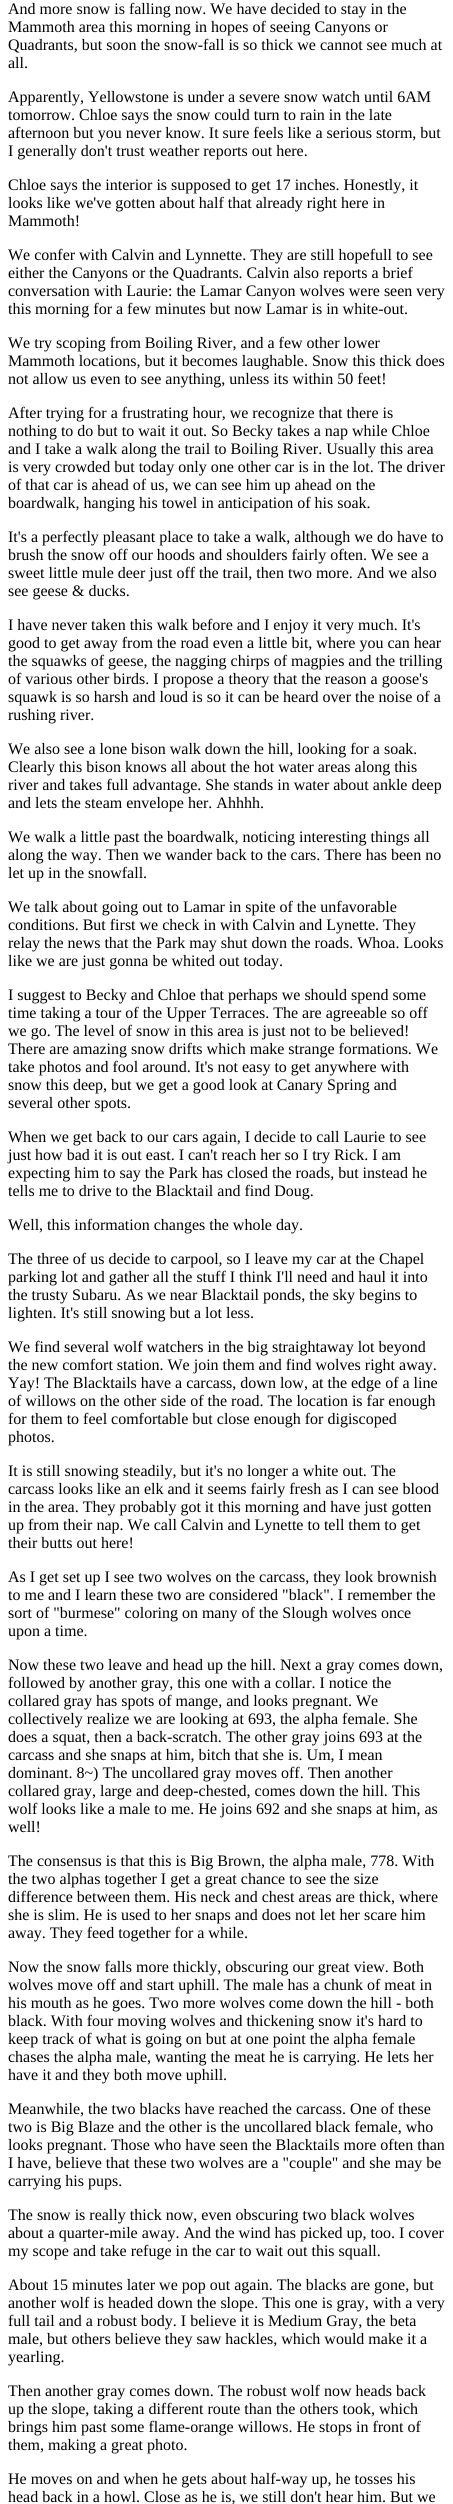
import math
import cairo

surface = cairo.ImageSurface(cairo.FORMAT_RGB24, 453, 2504)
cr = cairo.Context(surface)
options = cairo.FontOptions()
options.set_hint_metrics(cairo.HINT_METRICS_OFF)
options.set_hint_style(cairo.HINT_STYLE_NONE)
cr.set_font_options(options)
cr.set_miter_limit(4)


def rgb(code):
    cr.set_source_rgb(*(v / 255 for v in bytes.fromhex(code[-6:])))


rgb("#ffffff")
cr.paint()
cr.select_font_face("Liberation Serif")
cr.set_font_size(16)
rgb("#000000")
for x, y, s in [
    (8, 14, "And more snow is falling now. We have decided to stay in the"),
    (8, 32, "Mammoth area this morning in hopes of seeing Canyons or"),
    (8, 50, "Quadrants, but soon the snow-fall is so thick we cannot see much at"),
    (8, 68, "all."),
    (8, 102, "Apparently, Yellowstone is under a severe snow watch until 6AM"),
    (8, 120, "tomorrow. Chloe says the snow could turn to rain in the late"),
    (8, 138, "afternoon but you never know. It sure feels like a serious storm, but"),
    (8, 156, "I generally don't trust weather reports out here."),
    (8, 190, "Chloe says the interior is supposed to get 17 inches. Honestly, it"),
    (8, 208, "looks like we've gotten about half that already right here in"),
    (8, 226, "Mammoth!"),
    (8, 260, "We confer with Calvin and Lynnette. They are still hopefull to see"),
    (8, 278, "either the Canyons or the Quadrants. Calvin also reports a brief"),
    (8, 296, "conversation with Laurie: the Lamar Canyon wolves were seen very"),
    (8, 314, "this morning for a few minutes but now Lamar is in white-out."),
    (8, 348, "We try scoping from Boiling River, and a few other lower"),
    (8, 366, "Mammoth locations, but it becomes laughable. Snow this thick does"),
    (8, 384, "not allow us even to see anything, unless its within 50 feet!"),
    (8, 418, "After trying for a frustrating hour, we recognize that there is"),
    (8, 436, "nothing to do but to wait it out. So Becky takes a nap while Chloe"),
    (8, 454, "and I take a walk along the trail to Boiling River. Usually this area"),
    (8, 472, "is very crowded but today only one other car is in the lot. The driver"),
    (8, 490, "of that car is ahead of us, we can see him up ahead on the"),
    (8, 508, "boardwalk, hanging his towel in anticipation of his soak."),
    (8, 542, "It's a perfectly pleasant place to take a walk, although we do have to"),
    (8, 560, "brush the snow off our hoods and shoulders fairly often. We see a"),
    (8, 578, "sweet little mule deer just off the trail, then two more. And we also"),
    (8, 596, "see geese & ducks."),
    (8, 630, "I have never taken this walk before and I enjoy it very much. It's"),
    (8, 648, "good to get away from the road even a little bit, where you can hear"),
    (8, 666, "the squawks of geese, the nagging chirps of magpies and the trilling"),
    (8, 684, "of various other birds. I propose a theory that the reason a goose's"),
    (8, 702, "squawk is so harsh and loud is so it can be heard over the noise of a"),
    (8, 720, "rushing river."),
    (8, 754, "We also see a lone bison walk down the hill, looking for a soak."),
    (8, 772, "Clearly this bison knows all about the hot water areas along this"),
    (8, 790, "river and takes full advantage. She stands in water about ankle deep"),
    (8, 808, "and lets the steam envelope her. Ahhhh."),
    (8, 842, "We walk a little past the boardwalk, noticing interesting things all"),
    (8, 860, "along the way. Then we wander back to the cars. There has been no"),
    (8, 878, "let up in the snowfall."),
    (8, 912, "We talk about going out to Lamar in spite of the unfavorable"),
    (8, 930, "conditions. But first we check in with Calvin and Lynette. They"),
    (8, 948, "relay the news that the Park may shut down the roads. Whoa. Looks"),
    (8, 966, "like we are just gonna be whited out today."),
    (8, 1000, "I suggest to Becky and Chloe that perhaps we should spend some"),
    (8, 1018, "time taking a tour of the Upper Terraces. The are agreeable so off"),
    (8, 1036, "we go. The level of snow in this area is just not to be believed!"),
    (8, 1054, "There are amazing snow drifts which make strange formations. We"),
    (8, 1072, "take photos and fool around. It's not easy to get anywhere with"),
    (8, 1090, "snow this deep, but we get a good look at Canary Spring and"),
    (8, 1108, "several other spots."),
    (8, 1142, "When we get back to our cars again, I decide to call Laurie to see"),
    (8, 1160, "just how bad it is out east. I can't reach her so I try Rick. I am"),
    (8, 1178, "expecting him to say the Park has closed the roads, but instead he"),
    (8, 1196, "tells me to drive to the Blacktail and find Doug."),
    (8, 1230, "Well, this information changes the whole day."),
    (8, 1264, "The three of us decide to carpool, so I leave my car at the Chapel"),
    (8, 1282, "parking lot and gather all the stuff I think I'll need and haul it into"),
    (8, 1300, "the trusty Subaru. As we near Blacktail ponds, the sky begins to"),
    (8, 1318, "lighten. It's still snowing but a lot less."),
    (8, 1352, "We find several wolf watchers in the big straightaway lot beyond"),
    (8, 1370, "the new comfort station. We join them and find wolves right away."),
    (8, 1388, "Yay! The Blacktails have a carcass, down low, at the edge of a line"),
    (8, 1406, "of willows on the other side of the road. The location is far enough"),
    (8, 1424, "for them to feel comfortable but close enough for digiscoped"),
    (8, 1442, "photos."),
    (8, 1476, "It is still snowing steadily, but it's no longer a white out. The"),
    (8, 1494, "carcass looks like an elk and it seems fairly fresh as I can see blood"),
    (8, 1512, "in the area. They probably got it this morning and have just gotten"),
    (8, 1530, "up from their nap. We call Calvin and Lynette to tell them to get"),
    (8, 1548, "their butts out here!"),
    (8, 1582, "As I get set up I see two wolves on the carcass, they look brownish"),
    (8, 1600, "to me and I learn these two are considered \"black\". I remember the"),
    (8, 1618, "sort of \"burmese\" coloring on many of the Slough wolves once"),
    (8, 1636, "upon a time."),
    (8, 1670, "Now these two leave and head up the hill. Next a gray comes down,"),
    (8, 1688, "followed by another gray, this one with a collar. I notice the"),
    (8, 1706, "collared gray has spots of mange, and looks pregnant. We"),
    (8, 1724, "collectively realize we are looking at 693, the alpha female. She"),
    (8, 1742, "does a squat, then a back-scratch. The other gray joins 693 at the"),
    (8, 1760, "carcass and she snaps at him, bitch that she is. Um, I mean"),
    (8, 1778, "dominant. 8~) The uncollared gray moves off. Then another"),
    (8, 1796, "collared gray, large and deep-chested, comes down the hill. This"),
    (8, 1814, "wolf looks like a male to me. He joins 692 and she snaps at him, as"),
    (8, 1832, "well!"),
    (8, 1866, "The consensus is that this is Big Brown, the alpha male, 778. With"),
    (8, 1884, "the two alphas together I get a great chance to see the size"),
    (8, 1902, "difference between them. His neck and chest areas are thick, where"),
    (8, 1920, "she is slim. He is used to her snaps and does not let her scare him"),
    (8, 1938, "away. They feed together for a while."),
    (8, 1972, "Now the snow falls more thickly, obscuring our great view. Both"),
    (8, 1990, "wolves move off and start uphill. The male has a chunk of meat in"),
    (8, 2008, "his mouth as he goes. Two more wolves come down the hill - both"),
    (8, 2026, "black. With four moving wolves and thickening snow it's hard to"),
    (8, 2044, "keep track of what is going on but at one point the alpha female"),
    (8, 2062, "chases the alpha male, wanting the meat he is carrying. He lets her"),
    (8, 2080, "have it and they both move uphill."),
    (8, 2114, "Meanwhile, the two blacks have reached the carcass. One of these"),
    (8, 2132, "two is Big Blaze and the other is the uncollared black female, who"),
    (8, 2150, "looks pregnant. Those who have seen the Blacktails more often than"),
    (8, 2168, "I have, believe that these two wolves are a \"couple\" and she may be"),
    (8, 2186, "carrying his pups."),
    (8, 2220, "The snow is really thick now, even obscuring two black wolves"),
    (8, 2238, "about a quarter-mile away. And the wind has picked up, too. I cover"),
    (8, 2256, "my scope and take refuge in the car to wait out this squall."),
    (8, 2290, "About 15 minutes later we pop out again. The blacks are gone, but"),
    (8, 2308, "another wolf is headed down the slope. This one is gray, with a very"),
    (8, 2326, "full tail and a robust body. I believe it is Medium Gray, the beta"),
    (8, 2344, "male, but others believe they saw hackles, which would make it a"),
    (8, 2362, "yearling."),
    (8, 2396, "Then another gray comes down. The robust wolf now heads back"),
    (8, 2414, "up the slope, taking a different route than the others took, which"),
    (8, 2432, "brings him past some flame-orange willows. He stops in front of"),
    (8, 2450, "them, making a great photo."),
    (8, 2484, "He moves on and when he gets about half-way up, he tosses his"),
    (8, 2502, "head back in a howl. Close as he is, we still don't hear him. But we"),
]:
    cr.move_to(x, y)
    cr.show_text(s)
surface.write_to_png("page.png")
